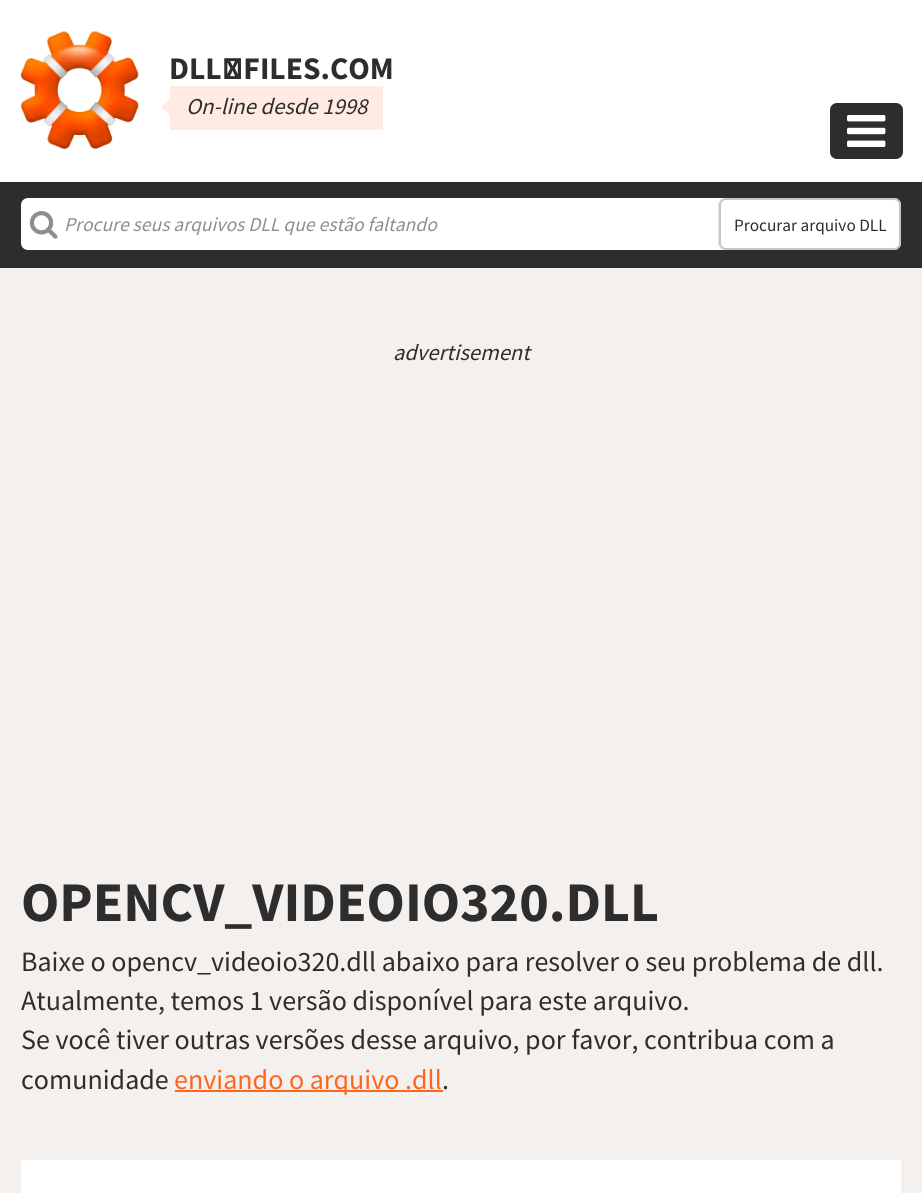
import math
import cairo

surface = cairo.ImageSurface(cairo.FORMAT_RGB24, 922, 1193)
cr = cairo.Context(surface)
options = cairo.FontOptions()
options.set_hint_metrics(cairo.HINT_METRICS_OFF)
options.set_hint_style(cairo.HINT_STYLE_NONE)
cr.set_font_options(options)
cr.set_miter_limit(4)


def rgb(code):
    cr.set_source_rgb(*(v / 255 for v in bytes.fromhex(code[-6:])))


def rrect(x, y, w, h, r):
    cr.new_sub_path()
    for i, (u, v) in enumerate([(x + w - r, y + h - r), (x + r, y + h - r), (x + r, y + r), (x + w - r, y + r)]):
        cr.arc(u, v, r, i * math.pi / 2, (i + 1) * math.pi / 2)
    cr.close_path()


def image(path, x, y, w, h):
    cr.save()
    cr.set_source_surface(cairo.ImageSurface.create_from_png(path), x, y)
    cr.rectangle(x, y, w, h)
    cr.fill()
    cr.restore()


rgb("#ffffff")
cr.paint()
image("img/1.png", 21, 31, 118, 118)
rgb("#ffebe1")
cr.rectangle(170, 86, 213, 44)
cr.fill()
cr.new_path()
cr.move_to(170, 98)
cr.line_to(170, 115.5)
cr.line_to(161, 107)
cr.close_path()
cr.fill()
rgb("#2d2d2d")
rrect(830, 103, 73, 56, 7)
cr.fill()
image("img/2.png", 847, 115, 39, 32)
cr.rectangle(0, 182, 922, 86)
cr.fill()
rgb("#ffffff")
rrect(21, 198, 880, 52, 7)
cr.fill()
image("img/3.png", 29, 211, 29, 28)
rgb("#e6e6e6")
cr.new_path()
cr.move_to(724, 198)
cr.curve_to(721, 199, 718, 201, 718, 205)
cr.line_to(718, 243)
cr.curve_to(718, 247, 721, 249, 724, 250)
cr.curve_to(721, 249, 719, 246, 719, 243)
cr.line_to(719, 205)
cr.curve_to(719, 202, 721, 199, 724, 198)
cr.close_path()
cr.fill()
rgb("#ffffff")
rrect(720, 199, 180, 50, 6)
cr.fill_preserve()
rgb("#c6c6c6")
cr.stroke()
for x, y, w, h, color in [
    (0, 268, 922, 925, "#f4f0ee"),
    (175, 1090, 268, 2, "#fe661f"),
    (21, 1160, 880, 33, "#ffffff"),
]:
    rgb(color)
    cr.rectangle(x, y, w, h)
    cr.fill()
cr.select_font_face("Source Sans Pro", cairo.FONT_SLANT_NORMAL, cairo.FONT_WEIGHT_BOLD)
cr.set_font_size(31.5)
rgb("#2d2d2d")
cr.move_to(169, 79)
cr.show_text("DLL‑FILES.COM")
cr.select_font_face("Source Sans Pro", cairo.FONT_SLANT_ITALIC)
cr.set_font_size(22.75)
cr.move_to(186, 114)
cr.show_text("On-line desde 1998")
cr.set_font_size(19.6)
rgb("#8e8e8e")
cr.move_to(64, 231)
cr.show_text("Procure seus arquivos DLL que estão faltando")
cr.select_font_face("Source Sans Pro")
cr.set_font_size(17.25)
rgb("#2d2d2d")
cr.move_to(734, 231)
cr.show_text("Procurar arquivo DLL")
cr.select_font_face("Source Sans Pro", cairo.FONT_SLANT_ITALIC)
cr.set_font_size(22.5)
cr.move_to(393, 360)
cr.show_text("advertisement")
cr.select_font_face("Source Sans Pro", cairo.FONT_SLANT_NORMAL, cairo.FONT_WEIGHT_BOLD)
cr.set_font_size(56)
cr.move_to(21, 921)
cr.show_text("OPENCV_VIDEOIO320.DLL")
cr.select_font_face("Source Sans Pro")
cr.set_font_size(28)
for x, y, s in [
    (21, 971, "Baixe o opencv_videoio320.dll abaixo para resolver o seu problema de dll."),
    (21, 1010, "Atualmente, temos 1 versão disponível para este arquivo."),
    (21, 1049, "Se você tiver outras versões desse arquivo, por favor, contribua com a"),
    (21, 1089, "comunidade"),
]:
    cr.move_to(x, y)
    cr.show_text(s)
rgb("#fe661f")
cr.move_to(174, 1089)
cr.show_text("enviando o arquivo .dll")
rgb("#2d2d2d")
cr.move_to(442, 1089)
cr.show_text(".")
surface.write_to_png("page.png")
